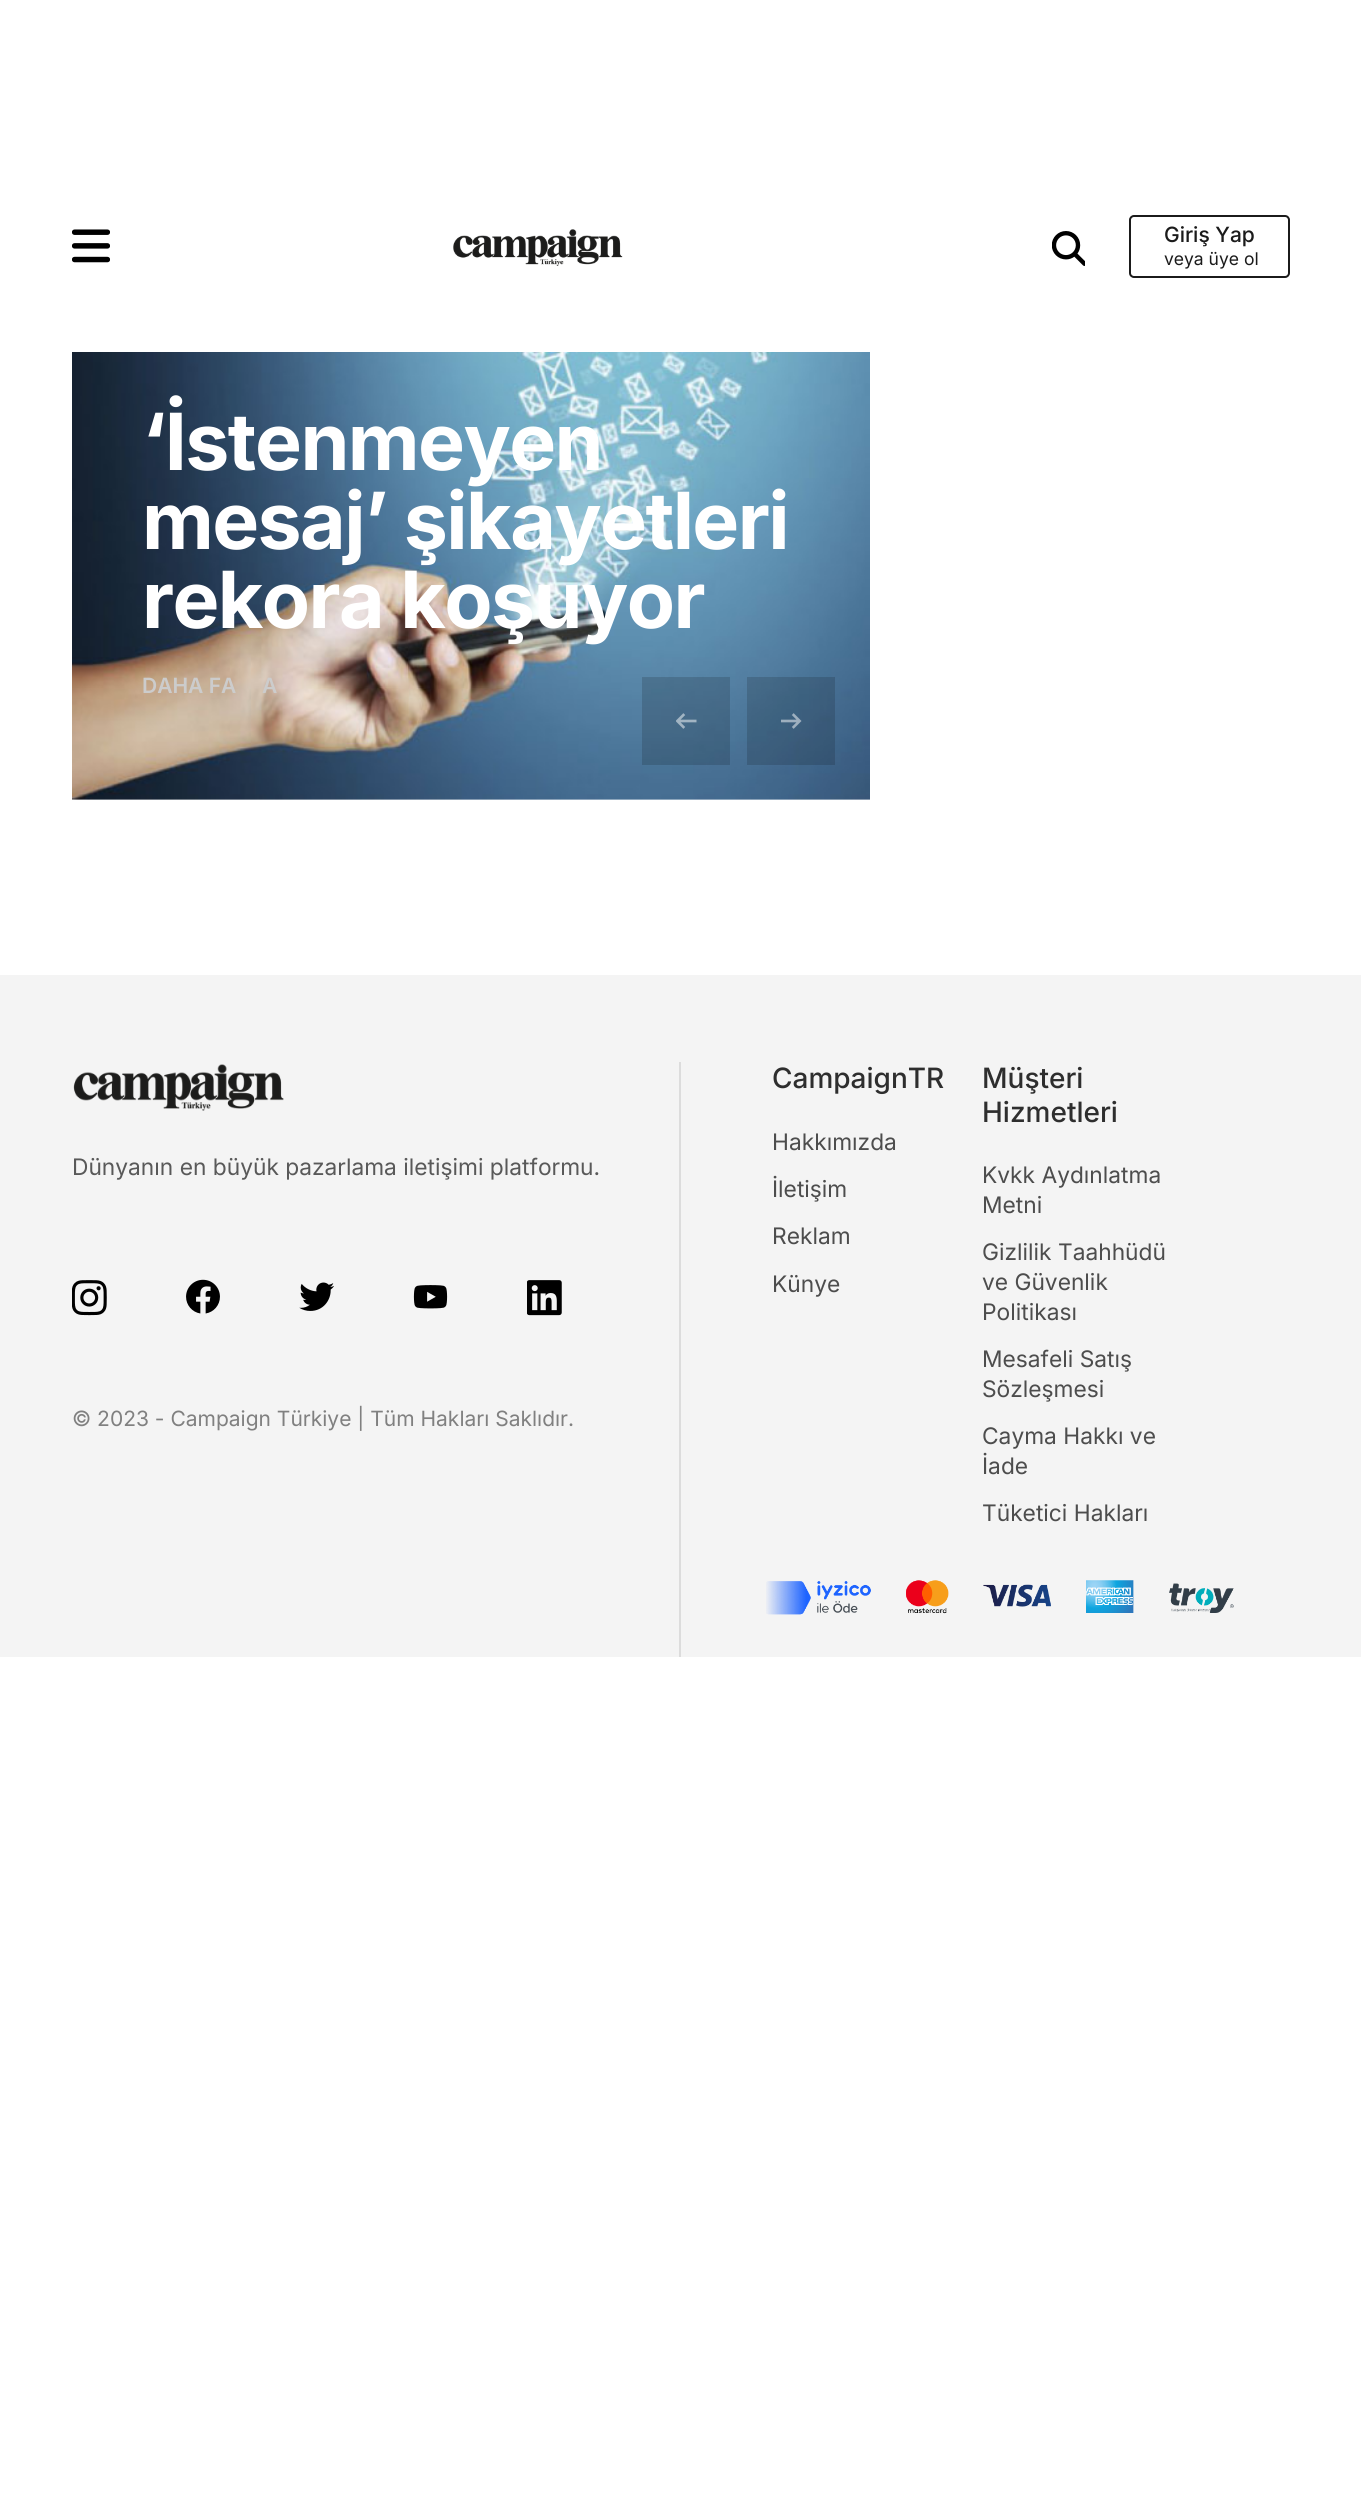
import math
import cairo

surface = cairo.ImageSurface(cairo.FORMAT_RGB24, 1361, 2502)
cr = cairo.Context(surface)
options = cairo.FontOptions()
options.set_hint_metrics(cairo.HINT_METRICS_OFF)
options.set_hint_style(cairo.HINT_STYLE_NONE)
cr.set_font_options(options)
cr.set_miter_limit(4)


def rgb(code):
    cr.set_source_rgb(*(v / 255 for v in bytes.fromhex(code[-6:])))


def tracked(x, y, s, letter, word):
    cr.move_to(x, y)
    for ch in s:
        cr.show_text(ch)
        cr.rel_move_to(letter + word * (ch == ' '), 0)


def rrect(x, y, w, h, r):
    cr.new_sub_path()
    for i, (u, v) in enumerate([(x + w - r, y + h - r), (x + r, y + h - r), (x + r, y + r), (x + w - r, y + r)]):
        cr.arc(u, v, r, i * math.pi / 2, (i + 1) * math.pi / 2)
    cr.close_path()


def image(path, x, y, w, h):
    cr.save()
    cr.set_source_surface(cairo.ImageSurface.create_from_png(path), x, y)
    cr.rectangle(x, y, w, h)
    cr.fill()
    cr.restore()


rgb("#ffffff")
cr.paint()
image("img/1.png", 72, 229, 38, 34)
image("img/2.png", 453, 229, 170, 37)
image("img/3.png", 1052, 231, 33, 35)
rrect(1130, 216, 159, 61, 4)
rgb("#1b1b1b")
cr.stroke()
image("img/4.png", 72, 352, 798, 448)
cr.set_source_rgba(0, 0, 0, 0.15)
cr.rectangle(642, 677, 88, 88)
cr.fill()
image("img/5.png", 676, 713, 21, 16)
cr.rectangle(747, 677, 88, 88)
cr.fill()
image("img/6.png", 781, 713, 21, 16)
rgb("#f4f4f4")
cr.rectangle(0, 975, 1361, 682)
cr.fill()
rgb("#dcdcdc")
cr.rectangle(679, 1062, 2, 595)
cr.fill()
image("img/7.png", 73, 1064, 211, 47)
image("img/8.png", 72, 1280, 35, 36)
image("img/9.png", 186, 1279, 34, 35)
image("img/10.png", 299, 1282, 35, 29)
image("img/11.png", 413, 1285, 35, 24)
image("img/12.png", 527, 1280, 35, 36)
image("img/13.png", 766, 1580, 468, 35)
cr.select_font_face("Inter Medium")
cr.set_font_size(21)
rgb("#1b1b1b")
cr.move_to(1164, 242)
cr.show_text("Giriş Yap")
cr.select_font_face("Inter")
cr.set_font_size(17.5)
cr.move_to(1164, 265)
cr.show_text("veya üye ol")
cr.select_font_face("Inter", cairo.FONT_SLANT_NORMAL, cairo.FONT_WEIGHT_BOLD)
cr.set_font_size(78.75)
rgb("#ffffff")
for x, y, s in [
    (142, 470, "‘İstenmeyen"),
    (142, 549, "mesaj’ şikayetleri"),
    (142, 628, "rekora koşuyor"),
]:
    tracked(x, y, s, -1.6, 0)
cr.select_font_face("Inter SemiBold")
cr.set_font_size(21)
rgb("#cccccc")
cr.move_to(142, 693)
cr.show_text("DAHA FA")
cr.move_to(262, 693)
cr.show_text("A")
cr.select_font_face("Inter")
cr.set_font_size(22.75)
rgb("#595959")
cr.move_to(72, 1175)
cr.show_text("Dünyanın en büyük pazarlama iletişimi platformu.")
cr.set_font_size(21)
rgb("#808080")
cr.move_to(72, 1426)
cr.show_text("© 2023 - Campaign Türkiye | Tüm Hakları Saklıdır.")
cr.select_font_face("Inter Medium")
cr.set_font_size(28)
rgb("#2e2e2e")
cr.move_to(772, 1088)
cr.show_text("CampaignTR")
cr.select_font_face("Inter")
cr.set_font_size(22.75)
rgb("#4d4d4d")
for x, y, s in [
    (772, 1150, "Hakkımızda"),
    (772, 1197, "İletişim"),
    (772, 1244, "Reklam"),
    (772, 1292, "Künye"),
]:
    cr.move_to(x, y)
    cr.show_text(s)
cr.select_font_face("Inter Medium")
cr.set_font_size(28)
rgb("#2e2e2e")
cr.move_to(982, 1088)
cr.show_text("Müşteri")
cr.move_to(982, 1122)
cr.show_text("Hizmetleri")
cr.select_font_face("Inter")
cr.set_font_size(22.75)
rgb("#4d4d4d")
for x, y, s in [
    (982, 1183, "Kvkk Aydınlatma"),
    (982, 1213, "Metni"),
    (982, 1260, "Gizlilik Taahhüdü"),
    (982, 1290, "ve Güvenlik"),
    (982, 1320, "Politikası"),
    (982, 1367, "Mesafeli Satış"),
    (982, 1397, "Sözleşmesi"),
    (982, 1444, "Cayma Hakkı ve"),
    (982, 1474, "İade"),
    (982, 1521, "Tüketici Hakları"),
]:
    cr.move_to(x, y)
    cr.show_text(s)
surface.write_to_png("page.png")
